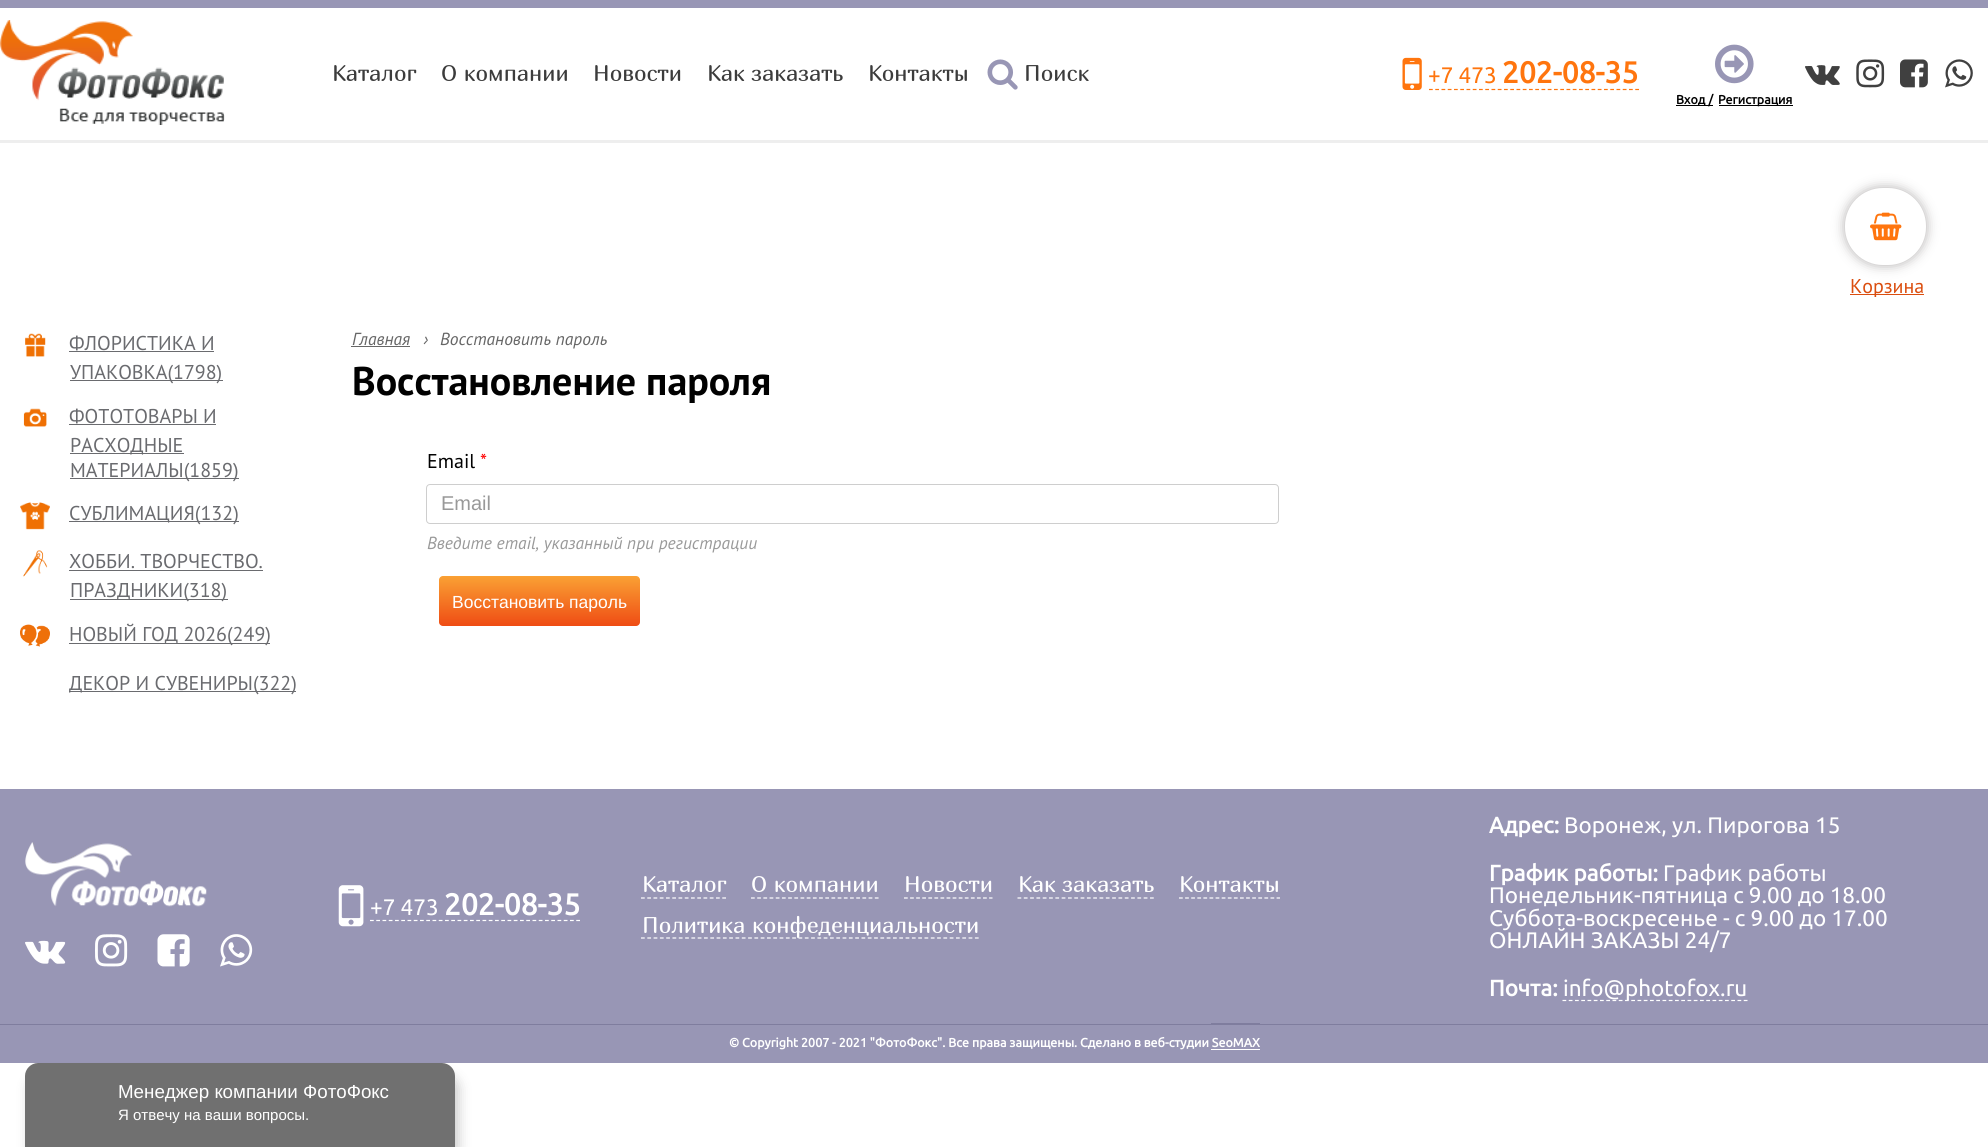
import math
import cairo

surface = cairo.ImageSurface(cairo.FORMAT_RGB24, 1988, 1147)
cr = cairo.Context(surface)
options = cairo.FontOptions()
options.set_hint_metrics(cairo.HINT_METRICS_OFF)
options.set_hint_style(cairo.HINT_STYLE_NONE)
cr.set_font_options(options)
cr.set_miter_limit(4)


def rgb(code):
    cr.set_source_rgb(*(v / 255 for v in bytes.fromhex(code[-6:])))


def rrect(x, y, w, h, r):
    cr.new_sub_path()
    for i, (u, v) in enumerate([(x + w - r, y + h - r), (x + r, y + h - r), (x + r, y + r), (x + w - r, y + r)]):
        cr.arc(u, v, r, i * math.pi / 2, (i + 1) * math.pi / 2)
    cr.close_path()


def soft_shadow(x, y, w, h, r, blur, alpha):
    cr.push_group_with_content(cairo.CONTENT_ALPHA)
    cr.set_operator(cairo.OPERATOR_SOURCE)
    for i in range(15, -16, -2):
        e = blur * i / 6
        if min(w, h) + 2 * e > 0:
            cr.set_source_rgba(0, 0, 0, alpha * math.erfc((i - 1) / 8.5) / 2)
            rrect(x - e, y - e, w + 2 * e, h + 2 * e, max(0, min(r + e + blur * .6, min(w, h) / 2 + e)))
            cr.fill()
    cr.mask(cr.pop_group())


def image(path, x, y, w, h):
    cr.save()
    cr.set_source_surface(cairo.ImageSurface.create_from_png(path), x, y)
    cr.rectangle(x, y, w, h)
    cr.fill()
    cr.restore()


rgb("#ffffff")
cr.paint()
rgb("#9896b5")
cr.rectangle(0, 0, 1988, 8)
cr.fill()
image("img/1.png", 0, 20, 225, 105)
image("img/2.png", 987, 59, 31, 31)
image("img/3.png", 1402, 57, 20, 33)
cr.new_path()
cr.move_to(1429, 89.5)
cr.line_to(1639, 89.5)
rgb("#ff750e")
cr.set_line_width(1.2)
cr.set_dash([3.75, 2.5])
cr.stroke()
image("img/4.png", 1805, 65, 35, 20)
image("img/5.png", 1856, 59, 29, 29)
image("img/6.png", 1900, 59, 28, 29)
image("img/7.png", 1945, 59, 28, 29)
image("img/8.png", 1715, 44, 39, 40)
for x, y, w, h, color in [
    (1676, 105, 37, 1, "#010101"),
    (1719, 105, 74, 1, "#010101"),
    (0, 140, 1988, 3, "#eeeeee"),
]:
    rgb(color)
    cr.rectangle(x, y, w, h)
    cr.fill()
rgb("#b1aeae")
soft_shadow(1845, 188, 81, 77, 38, 6, 1)
rgb("#ffffff")
rrect(1845, 188, 81, 77, 38)
cr.fill()
image("img/9.png", 1870, 212, 32, 29)
rgb("#db4e0f")
cr.rectangle(1850, 294, 74, 1)
cr.fill()
image("img/10.png", 25, 333, 21, 24)
rgb("#6a6b6f")
cr.rectangle(69, 351, 145, 1)
cr.fill()
cr.rectangle(70, 380, 153, 1)
cr.fill()
image("img/11.png", 23, 408, 24, 19)
for x, y, w, h, color in [
    (69, 424, 147, 1, "#6a6b6f"),
    (70, 453, 114, 1, "#6a6b6f"),
    (70, 478, 169, 1, "#6a6b6f"),
]:
    rgb(color)
    cr.rectangle(x, y, w, h)
    cr.fill()
image("img/12.png", 20, 502, 30, 28)
cr.rectangle(69, 521, 170, 1)
cr.fill()
image("img/13.png", 23, 550, 25, 27)
cr.rectangle(69, 570, 194, 1)
cr.fill()
cr.rectangle(70, 599, 158, 1)
cr.fill()
image("img/14.png", 20, 624, 30, 23)
for x, y, w, h, color in [
    (69, 643, 201, 1, "#6a6b6f"),
    (69, 691, 227, 1, "#6a6b6f"),
    (351, 346, 59, 1, "#666666"),
]:
    rgb(color)
    cr.rectangle(x, y, w, h)
    cr.fill()
rrect(426.5, 484.5, 852, 39, 3.5)
rgb("#cecece")
cr.set_line_width(1)
cr.set_dash([])
cr.stroke()
gradient = cairo.LinearGradient(539, 576, 539, 626)
gradient.add_color_stop_rgba(0, 0.98, 0.631, 0.204, 1)
gradient.add_color_stop_rgba(1, 0.937, 0.298, 0.078, 1)
cr.set_source(gradient)
rrect(439, 576, 201, 50, 4)
cr.fill()
rgb("#9896b5")
cr.rectangle(0, 789, 1988, 274)
cr.fill()
image("img/15.png", 25, 842, 182, 65)
image("img/16.png", 25, 940, 41, 24)
image("img/17.png", 95, 934, 33, 33)
image("img/18.png", 157, 934, 33, 33)
image("img/19.png", 220, 934, 33, 33)
image("img/20.png", 338, 885, 26, 42)
cr.new_path()
cr.move_to(370, 920.5)
cr.line_to(580, 920.5)
rgb("#ffffff")
cr.set_line_width(1.2)
cr.set_dash([3.75, 2.5])
cr.stroke()
cr.new_path()
cr.move_to(641, 898)
cr.line_to(726, 898)
cr.stroke()
cr.new_path()
cr.move_to(751, 898)
cr.line_to(879, 898)
cr.set_dash([3.75, 2.44])
cr.stroke()
cr.new_path()
cr.move_to(904, 898)
cr.line_to(992.5, 898)
cr.set_dash([3.75, 2.33])
cr.stroke()
cr.new_path()
cr.move_to(1017.5, 898)
cr.line_to(1154, 898)
cr.set_dash([3.75, 2.56])
cr.stroke()
cr.new_path()
cr.move_to(1179, 898)
cr.line_to(1280, 898)
cr.set_dash([3.75, 2.35])
cr.stroke()
cr.new_path()
cr.move_to(641, 938)
cr.line_to(979, 938)
cr.set_dash([3.75, 2.55])
cr.stroke()
cr.new_path()
cr.move_to(1562.5, 1000.5)
cr.line_to(1747.5, 1000.5)
cr.set_dash([3.75, 2.5])
cr.stroke()
for x, y, w, h, color in [
    (0, 1024, 1988, 1, "#7f7d9e"),
    (1211, 1023, 49, 1, "#7f7d9e"),
    (1211, 1049, 49, 1, "#ffffff"),
]:
    rgb(color)
    cr.rectangle(x, y, w, h)
    cr.fill()
rgb("#000000")
soft_shadow(29, 1075, 430, 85, 13, 6, 0.2)
rgb("#707070")
cr.new_path()
cr.move_to(38, 1063)
cr.line_to(442, 1063)
cr.curve_to(449, 1063, 455, 1069, 455, 1076)
cr.line_to(455, 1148)
cr.line_to(25, 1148)
cr.line_to(25, 1076)
cr.curve_to(25, 1069, 31, 1063, 38, 1063)
cr.close_path()
cr.fill()
cr.select_font_face("Marmelad")
cr.set_font_size(22.5)
rgb("#3c3c3c")
for x, y, s in [
    (332, 81, "Каталог"),
    (441, 81, "О компании"),
    (593, 81, "Новости"),
    (707, 81, "Как заказать"),
    (868, 81, "Контакты"),
    (1024, 81, "Поиск"),
]:
    cr.move_to(x, y)
    cr.show_text(s)
cr.select_font_face("Ubuntu")
rgb("#ff750e")
cr.move_to(1428, 83)
cr.show_text("+7 473")
cr.select_font_face("Ubuntu", cairo.FONT_SLANT_NORMAL, cairo.FONT_WEIGHT_BOLD)
cr.set_font_size(30)
cr.move_to(1502, 83)
cr.show_text("202-08-35")
cr.set_font_size(12.5)
rgb("#010101")
cr.move_to(1676, 104)
cr.show_text("Вход /")
cr.move_to(1718, 104)
cr.show_text("Регистрация")
cr.select_font_face("PT Sans")
cr.set_font_size(20)
rgb("#db4e0f")
cr.move_to(1850, 293)
cr.show_text("Корзина")
rgb("#6a6b6f")
for x, y, s in [
    (69, 350, "ФЛОРИСТИКА И"),
    (70, 379, "УПАКОВКА(1798)"),
    (69, 423, "ФОТОТОВАРЫ И"),
    (70, 452, "РАСХОДНЫЕ"),
    (70, 477, "МАТЕРИАЛЫ(1859)"),
    (69, 520, "СУБЛИМАЦИЯ(132)"),
    (69, 568, "ХОББИ. ТВОРЧЕСТВО."),
    (70, 597, "ПРАЗДНИКИ(318)"),
    (69, 641, "НОВЫЙ ГОД 2026(249)"),
    (69, 690, "ДЕКОР И СУВЕНИРЫ(322)"),
]:
    cr.move_to(x, y)
    cr.show_text(s)
cr.select_font_face("PT Sans", cairo.FONT_SLANT_ITALIC)
cr.set_font_size(17.5)
rgb("#666666")
for x, y, s in [
    (352, 345, "Главная"),
    (423, 345, "›"),
    (440, 345, "Восстановить пароль"),
]:
    cr.move_to(x, y)
    cr.show_text(s)
cr.select_font_face("PT Sans", cairo.FONT_SLANT_NORMAL, cairo.FONT_WEIGHT_BOLD)
cr.set_font_size(40)
rgb("#010101")
cr.move_to(352, 395)
cr.show_text("Восстановление пароля")
cr.select_font_face("PT Sans")
cr.set_font_size(20)
cr.move_to(427, 468)
cr.show_text("Email")
rgb("#ff0000")
cr.move_to(480, 468)
cr.show_text("*")
cr.select_font_face("Liberation Sans")
rgb("#999999")
cr.move_to(441, 510)
cr.show_text("Email")
cr.select_font_face("PT Sans", cairo.FONT_SLANT_ITALIC)
cr.set_font_size(17.5)
cr.move_to(427, 549)
cr.show_text("Введите email, указанный при регистрации")
cr.select_font_face("Liberation Sans")
rgb("#ffffff")
cr.move_to(452, 608)
cr.show_text("Восстановить пароль")
cr.select_font_face("Ubuntu")
cr.set_font_size(22.5)
cr.move_to(370, 915)
cr.show_text("+7 473")
cr.select_font_face("Ubuntu", cairo.FONT_SLANT_NORMAL, cairo.FONT_WEIGHT_BOLD)
cr.set_font_size(30)
cr.move_to(444, 915)
cr.show_text("202-08-35")
cr.select_font_face("Marmelad")
cr.set_font_size(22.5)
for x, y, s in [
    (642, 892, "Каталог"),
    (751, 892, "О компании"),
    (904, 892, "Новости"),
    (1018, 892, "Как заказать"),
    (1179, 892, "Контакты"),
    (642, 933, "Политика конфеденциальности"),
]:
    cr.move_to(x, y)
    cr.show_text(s)
cr.select_font_face("Ubuntu", cairo.FONT_SLANT_NORMAL, cairo.FONT_WEIGHT_BOLD)
cr.move_to(1489, 833)
cr.show_text("Адрес:")
cr.select_font_face("Ubuntu")
cr.move_to(1564, 833)
cr.show_text("Воронеж, ул. Пирогова 15")
cr.select_font_face("Ubuntu", cairo.FONT_SLANT_NORMAL, cairo.FONT_WEIGHT_BOLD)
cr.move_to(1489, 881)
cr.show_text("График работы:")
cr.select_font_face("Ubuntu")
for x, y, s in [
    (1663, 881, "График работы"),
    (1489, 903, "Понедельник-пятница с 9.00 до 18.00"),
    (1489, 926, "Суббота-воскресенье - с 9.00 до 17.00"),
    (1489, 948, "ОНЛАЙН ЗАКАЗЫ 24/7"),
]:
    cr.move_to(x, y)
    cr.show_text(s)
cr.select_font_face("Ubuntu", cairo.FONT_SLANT_NORMAL, cairo.FONT_WEIGHT_BOLD)
cr.move_to(1489, 996)
cr.show_text("Почта:")
cr.select_font_face("Ubuntu")
cr.move_to(1563, 996)
cr.show_text("info@photofox.ru")
cr.select_font_face("Ubuntu", cairo.FONT_SLANT_NORMAL, cairo.FONT_WEIGHT_BOLD)
cr.set_font_size(12.5)
cr.move_to(729, 1047)
cr.show_text("© Copyright 2007 - 2021 \"ФотоФокс\". Все права защищены. Сделано в веб-студии SeoMAX")
cr.select_font_face("Liberation Sans")
cr.set_font_size(18.75)
cr.move_to(118, 1098)
cr.show_text("Менеджер компании ФотоФокс")
cr.set_font_size(15)
cr.move_to(118, 1120)
cr.show_text("Я отвечу на ваши вопросы.")
surface.write_to_png("page.png")
